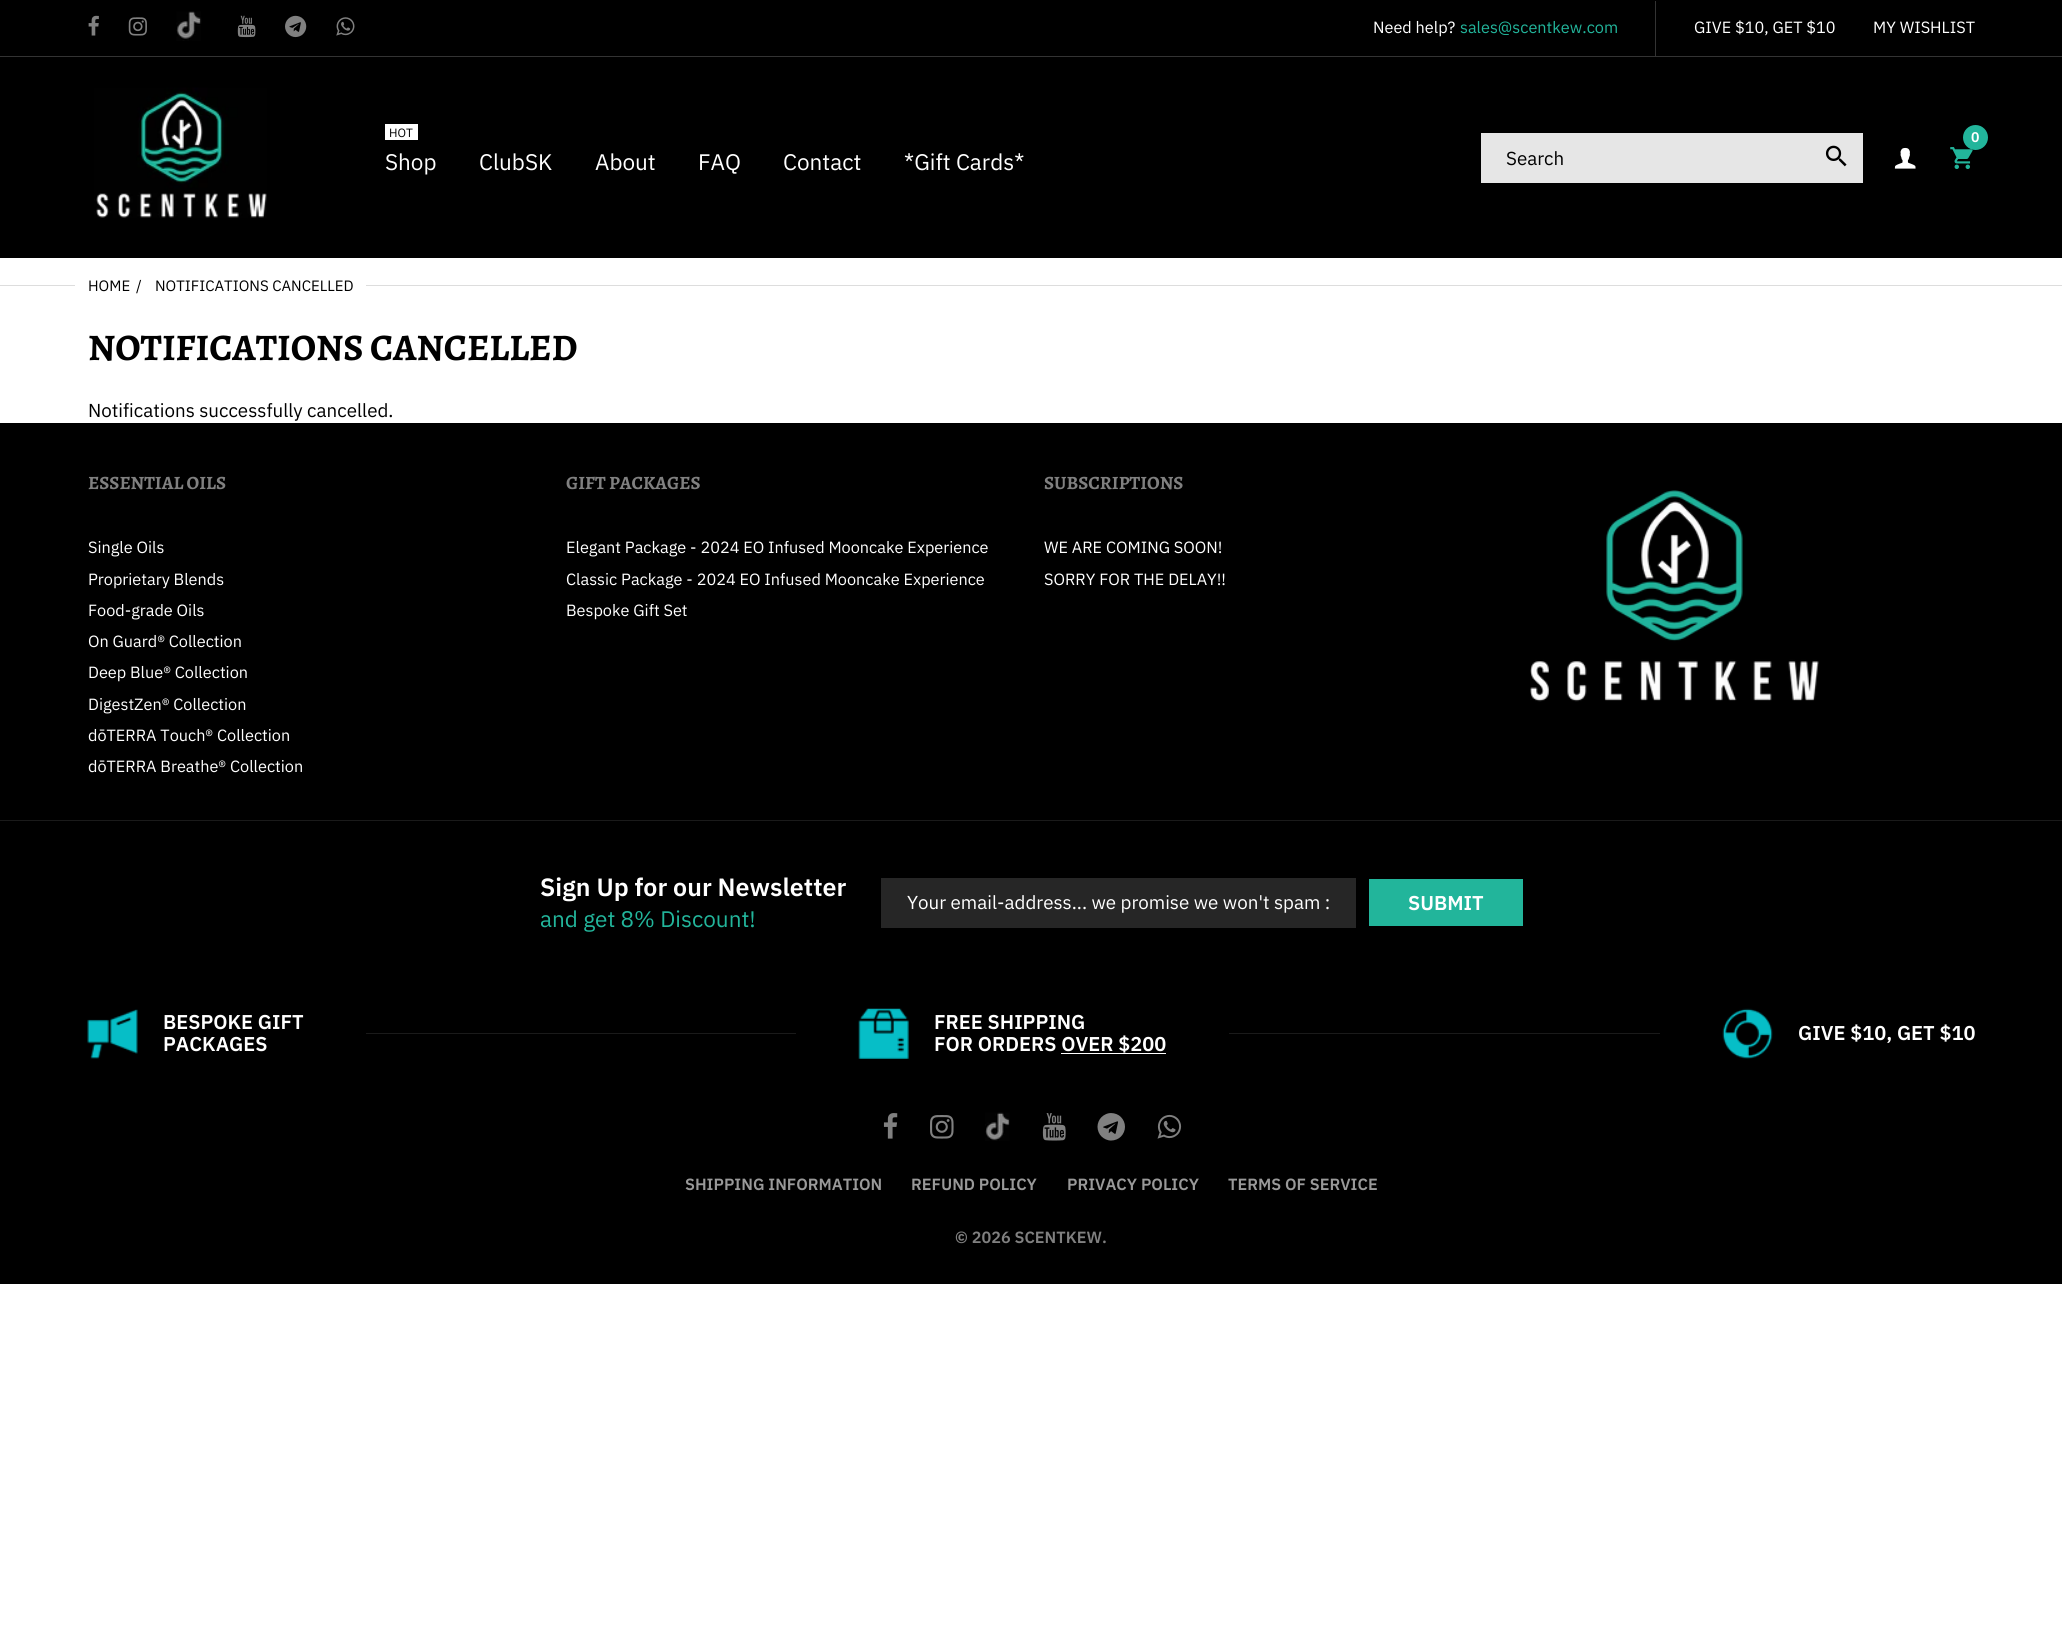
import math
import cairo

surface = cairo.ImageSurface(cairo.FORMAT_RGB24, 2062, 1649)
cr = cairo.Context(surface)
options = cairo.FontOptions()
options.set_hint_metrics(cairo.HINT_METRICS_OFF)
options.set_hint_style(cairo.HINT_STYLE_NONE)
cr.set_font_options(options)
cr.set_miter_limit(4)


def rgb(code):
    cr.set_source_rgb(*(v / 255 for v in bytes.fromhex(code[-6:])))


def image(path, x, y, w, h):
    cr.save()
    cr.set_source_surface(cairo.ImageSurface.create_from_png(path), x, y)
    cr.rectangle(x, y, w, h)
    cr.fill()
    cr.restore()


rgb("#ffffff")
cr.paint()
rgb("#000000")
cr.rectangle(0, 0, 2062, 258)
cr.fill()
rgb("#333333")
cr.rectangle(0, 56, 2062, 1)
cr.fill()
image("img/1.png", 88, 15, 11, 21)
image("img/2.png", 128, 17, 19, 19)
image("img/3.png", 176, 11, 26, 30)
image("img/4.png", 237, 15, 19, 23)
image("img/5.png", 285, 15, 22, 23)
image("img/6.png", 336, 17, 19, 19)
cr.rectangle(1655, 1, 1, 55)
cr.fill()
image("img/7.png", 94, 87, 173, 131)
rgb("#ffffff")
cr.rectangle(385, 124, 33, 16)
cr.fill()
image("img/8.png", 1950, 147, 23, 22)
rgb("#22b59b")
cr.arc(1975.5, 137.5, 12.5, 0, 2 * math.pi)
cr.fill()
rgb("#e6e6e6")
cr.rectangle(1481, 133, 382, 50)
cr.fill()
image("img/9.png", 1825, 145, 22, 22)
image("img/10.png", 1894, 147, 22, 22)
for x, y, w, h, color in [
    (0, 285, 75, 1, "#dddddd"),
    (366, 285, 1696, 1, "#dddddd"),
    (0, 423, 2062, 861, "#000000"),
]:
    rgb(color)
    cr.rectangle(x, y, w, h)
    cr.fill()
image("img/11.png", 1530, 490, 289, 212)
for x, y, w, h, color in [
    (0, 820, 2062, 1, "#1a1a1a"),
    (881, 878, 475, 50, "#262626"),
    (1369, 879, 154, 47, "#22b59b"),
]:
    rgb(color)
    cr.rectangle(x, y, w, h)
    cr.fill()
image("img/12.png", 87, 1009, 51, 50)
rgb("#1a1a1a")
cr.rectangle(366, 1033, 430, 1)
cr.fill()
image("img/13.png", 858, 1008, 51, 51)
rgb("#ffffff")
cr.rectangle(1061, 1053, 105, 1)
cr.fill()
rgb("#1a1a1a")
cr.rectangle(1229, 1033, 431, 1)
cr.fill()
image("img/14.png", 1722, 1008, 51, 51)
image("img/15.png", 883, 1113, 15, 26)
image("img/16.png", 930, 1115, 24, 24)
image("img/17.png", 985, 1112, 25, 29)
image("img/18.png", 1042, 1113, 24, 28)
image("img/19.png", 1097, 1113, 28, 28)
image("img/20.png", 1157, 1114, 25, 25)
cr.select_font_face("IBM Plex Sans")
cr.set_font_size(16.25)
rgb("#ffffff")
cr.move_to(1373, 33)
cr.show_text("Need help?")
rgb("#22b59b")
cr.move_to(1460, 33)
cr.show_text("sales@scentkew.com")
rgb("#ffffff")
cr.move_to(1694, 33)
cr.show_text("GIVE $10, GET $10")
cr.move_to(1873, 33)
cr.show_text("MY WISHLIST")
cr.set_font_size(12)
rgb("#000000")
cr.move_to(389, 137)
cr.show_text("HOT")
cr.set_font_size(22.5)
rgb("#ffffff")
for x, y, s in [
    (385, 170, "Shop"),
    (479, 170, "ClubSK"),
    (595, 170, "About"),
    (698, 170, "FAQ"),
    (783, 170, "Contact"),
    (904, 170, "*Gift Cards*"),
]:
    cr.move_to(x, y)
    cr.show_text(s)
cr.select_font_face("IBM Plex Sans SemiBold")
cr.set_font_size(14)
cr.move_to(1971, 142)
cr.show_text("0")
cr.select_font_face("IBM Plex Sans")
cr.set_font_size(18.75)
rgb("#000000")
cr.move_to(1506, 165)
cr.show_text("Search")
cr.set_font_size(15)
for x, y, s in [
    (88, 291, "HOME"),
    (136, 291, "/"),
    (155, 291, "NOTIFICATIONS CANCELLED"),
]:
    cr.move_to(x, y)
    cr.show_text(s)
cr.select_font_face("Alegreya", cairo.FONT_SLANT_NORMAL, cairo.FONT_WEIGHT_BOLD)
cr.set_font_size(37.5)
cr.move_to(88, 360)
cr.show_text("NOTIFICATIONS CANCELLED")
cr.select_font_face("IBM Plex Sans")
cr.set_font_size(18.75)
cr.move_to(88, 417)
cr.show_text("Notifications successfully cancelled.")
cr.select_font_face("Alegreya", cairo.FONT_SLANT_NORMAL, cairo.FONT_WEIGHT_BOLD)
rgb("#808080")
cr.move_to(88, 489)
cr.show_text("ESSENTIAL OILS")
cr.select_font_face("IBM Plex Sans")
cr.set_font_size(16.25)
rgb("#ffffff")
for x, y, s in [
    (88, 553, "Single Oils"),
    (88, 585, "Proprietary Blends"),
    (88, 616, "Food-grade Oils"),
    (88, 647, "On Guard® Collection"),
    (88, 678, "Deep Blue® Collection"),
    (88, 710, "DigestZen® Collection"),
    (88, 741, "dōTERRA Touch® Collection"),
    (88, 772, "dōTERRA Breathe® Collection"),
]:
    cr.move_to(x, y)
    cr.show_text(s)
cr.select_font_face("Alegreya", cairo.FONT_SLANT_NORMAL, cairo.FONT_WEIGHT_BOLD)
cr.set_font_size(18.75)
rgb("#808080")
cr.move_to(566, 489)
cr.show_text("GIFT PACKAGES")
cr.select_font_face("IBM Plex Sans")
cr.set_font_size(16.25)
rgb("#ffffff")
for x, y, s in [
    (566, 553, "Elegant Package - 2024 EO Infused Mooncake Experience"),
    (566, 585, "Classic Package - 2024 EO Infused Mooncake Experience"),
    (566, 616, "Bespoke Gift Set"),
]:
    cr.move_to(x, y)
    cr.show_text(s)
cr.select_font_face("Alegreya", cairo.FONT_SLANT_NORMAL, cairo.FONT_WEIGHT_BOLD)
cr.set_font_size(18.75)
rgb("#808080")
cr.move_to(1044, 489)
cr.show_text("SUBSCRIPTIONS")
cr.select_font_face("IBM Plex Sans")
cr.set_font_size(16.25)
rgb("#ffffff")
cr.move_to(1044, 553)
cr.show_text("WE ARE COMING SOON!")
cr.move_to(1044, 585)
cr.show_text("SORRY FOR THE DELAY!!")
cr.select_font_face("IBM Plex Sans SemiBold")
cr.set_font_size(25)
cr.move_to(540, 896)
cr.show_text("Sign Up for our Newsletter")
cr.select_font_face("IBM Plex Sans")
cr.set_font_size(22.5)
rgb("#22b59b")
cr.move_to(540, 927)
cr.show_text("and get 8% Discount!")
cr.set_font_size(18.75)
rgb("#ffffff")
cr.move_to(907, 909)
cr.show_text("Your email-address... we promise we won't spam :")
cr.select_font_face("IBM Plex Sans SemiBold")
cr.set_font_size(20)
for x, y, s in [
    (1408, 910, "SUBMIT"),
    (163, 1029, "BESPOKE GIFT"),
    (163, 1051, "PACKAGES"),
    (934, 1029, "FREE SHIPPING"),
    (934, 1051, "FOR ORDERS OVER $200"),
    (1798, 1040, "GIVE $10, GET $10"),
]:
    cr.move_to(x, y)
    cr.show_text(s)
cr.set_font_size(16.25)
rgb("#999999")
for x, y, s in [
    (685, 1190, "SHIPPING INFORMATION"),
    (911, 1190, "REFUND POLICY"),
    (1067, 1190, "PRIVACY POLICY"),
    (1228, 1190, "TERMS OF SERVICE"),
]:
    cr.move_to(x, y)
    cr.show_text(s)
rgb("#808080")
cr.move_to(955, 1243)
cr.show_text("© 2026 SCENTKEW.")
surface.write_to_png("page.png")
